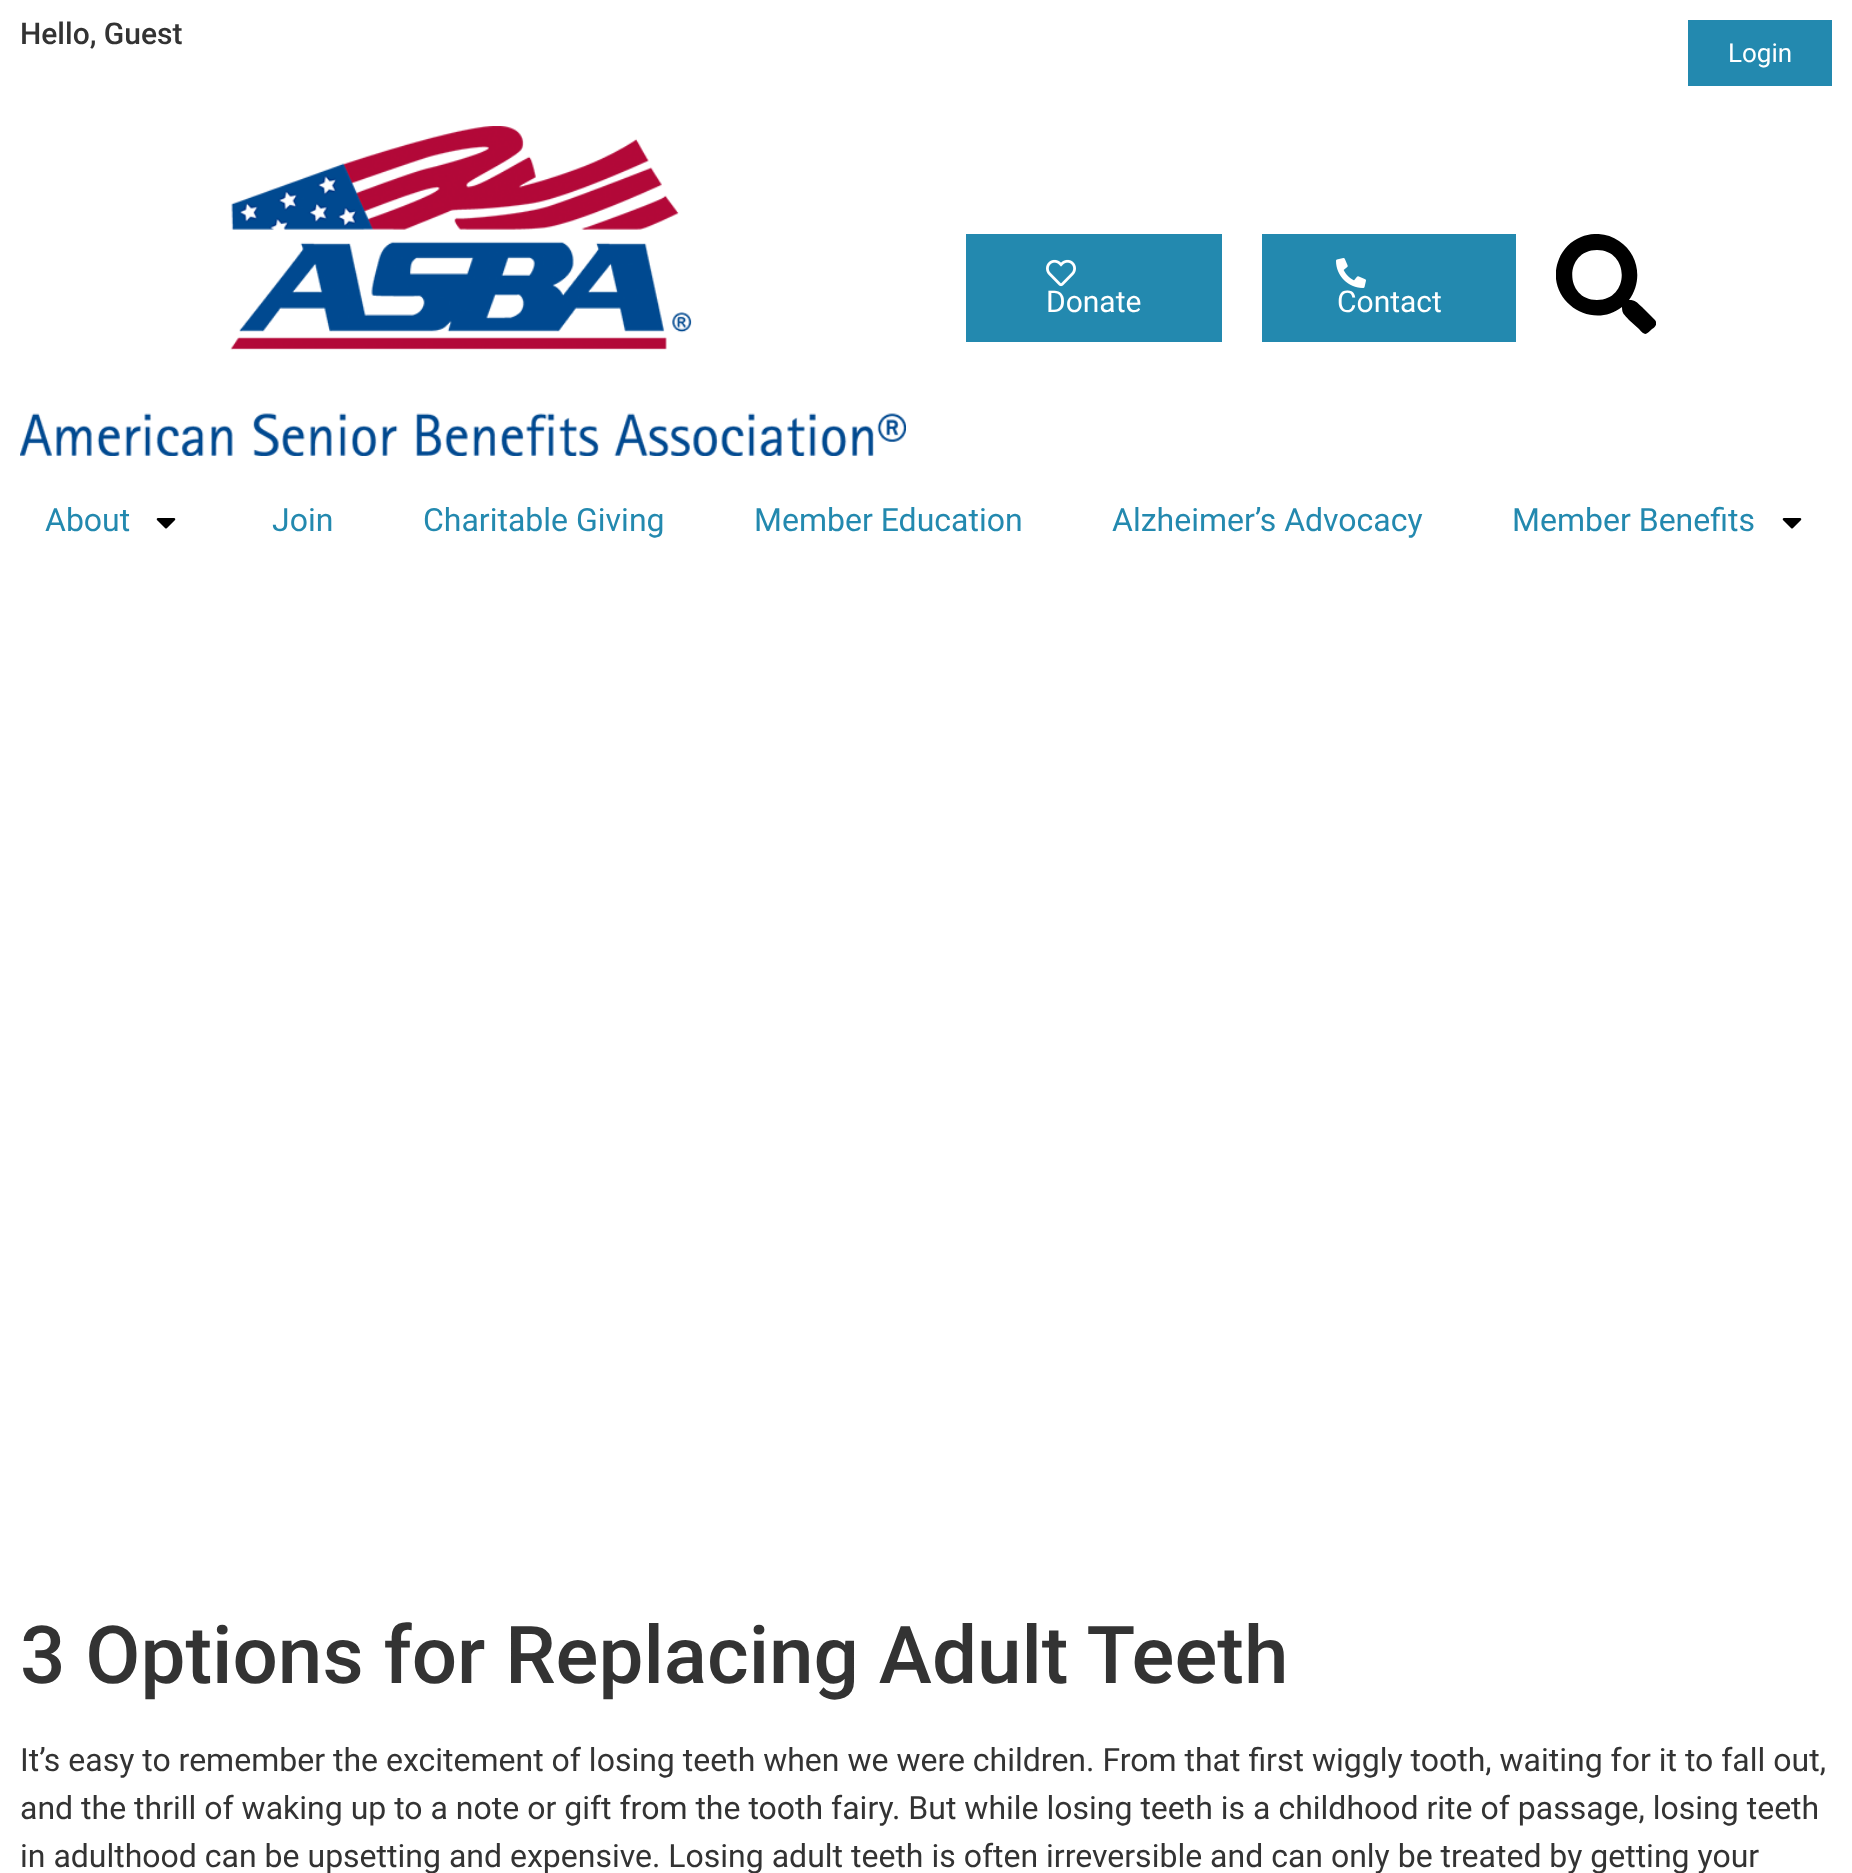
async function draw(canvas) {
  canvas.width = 1852
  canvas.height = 1873
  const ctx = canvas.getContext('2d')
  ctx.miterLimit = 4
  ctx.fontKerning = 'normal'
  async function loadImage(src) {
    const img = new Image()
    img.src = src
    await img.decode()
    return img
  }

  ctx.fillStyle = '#fff'
  ctx.fillRect(0, 0, 1852, 1873)
  ctx.font = '500 30px Roboto'
  ctx.fillStyle = '#333'
  ctx.fillText('Hello, Guest', 20, 44)
  ctx.fillStyle = '#2389af'
  ctx.fillRect(1688, 20, 144, 66)
  ctx.font = '26px Roboto'
  ctx.fillStyle = '#fff'
  ctx.fillText('Login', 1728, 62)
  ctx.drawImage(await loadImage('image0.png'), 20, 126, 886, 330)
  ctx.fillStyle = '#2389af'
  ctx.fillRect(966, 234, 256, 108)
  ctx.drawImage(await loadImage('image1.png'), 1046, 259, 30, 28)
  ctx.font = '30px Roboto'
  ctx.fillStyle = '#fff'
  ctx.fillText('Donate', 1046, 312)
  ctx.fillStyle = '#2389af'
  ctx.fillRect(1262, 234, 254, 108)
  ctx.drawImage(await loadImage('image2.png'), 1336, 258, 30, 30)
  ctx.fillStyle = '#fff'
  ctx.fillText('Contact', 1337, 312)
  ctx.save()
  ctx.beginPath()
  ctx.rect(1556, 234, 100, 100)
  ctx.clip()
  ctx.fillStyle = '#000'
  ctx.beginPath()
  ctx.moveTo(1655, 320)
  ctx.lineTo(1642, 307)
  ctx.bezierCurveTo(1636, 302, 1636, 300, 1629, 300)
  ctx.bezierCurveTo(1643, 281, 1639, 254, 1619, 241)
  ctx.bezierCurveTo(1608, 233, 1593, 232, 1581, 237)
  ctx.bezierCurveTo(1571, 241, 1563, 249, 1559, 259)
  ctx.bezierCurveTo(1543, 298, 1590, 332, 1622, 307)
  ctx.bezierCurveTo(1622, 314, 1624, 314, 1629, 320)
  ctx.lineTo(1639, 329)
  ctx.bezierCurveTo(1645, 336, 1646, 335, 1652, 329)
  ctx.bezierCurveTo(1655, 327, 1658, 324, 1655, 320)
  ctx.closePath()
  ctx.moveTo(1597, 300)
  ctx.bezierCurveTo(1564, 300, 1564, 250, 1597, 250)
  ctx.bezierCurveTo(1630, 250, 1630, 300, 1597, 300)
  ctx.closePath()
  ctx.fill()
  ctx.restore()
  ctx.font = '32px Roboto'
  ctx.fillStyle = '#2389af'
  ctx.fillText('About', 45, 531)
  ctx.drawImage(await loadImage('image3.png'), 156, 518, 20, 11)
  ctx.fillText('Join', 272, 531)
  ctx.fillText('Charitable Giving', 423, 531)
  ctx.fillText('Member Education', 754, 531)
  ctx.fillText('Alzheimer’s Advocacy', 1112, 531)
  ctx.fillText('Member Benefits', 1512, 531)
  ctx.drawImage(await loadImage('image3.png'), 1782, 518, 20, 11)
  ctx.font = '500 80px Roboto'
  ctx.fillStyle = '#333'
  ctx.fillText('3 Options for Replacing Adult Teeth', 20, 1683)
  ctx.font = '32px Roboto'
  ctx.fillText('It’s easy to remember the excitement of losing teeth when we were children. From that first wiggly tooth, waiting for it to fall out,', 20, 1771)
  ctx.fillText('and the thrill of waking up to a note or gift from the tooth fairy. But while losing teeth is a childhood rite of passage, losing teeth', 20, 1819)
  ctx.fillText('in adulthood can be upsetting and expensive. Losing adult teeth is often irreversible and can only be treated by getting your', 20, 1867)
}

draw(document.querySelector('canvas'))
